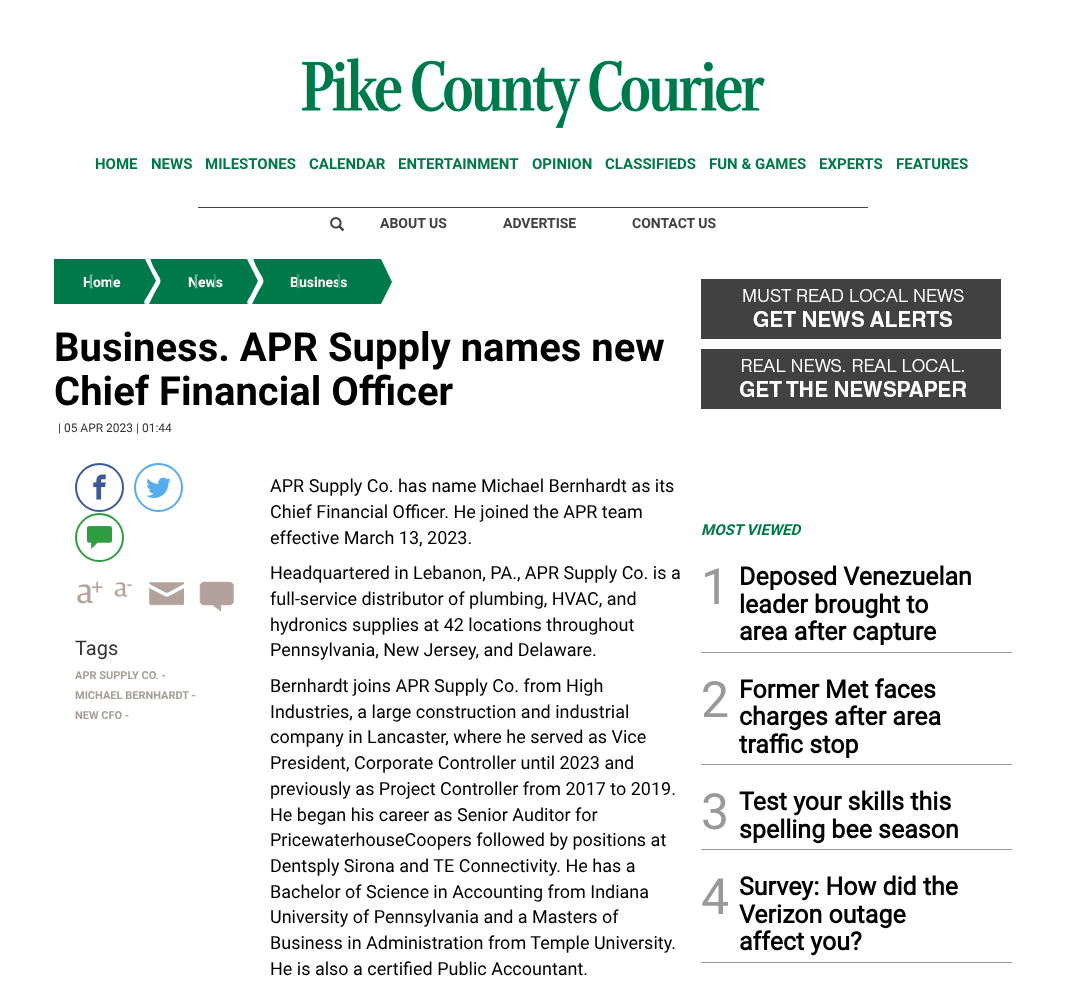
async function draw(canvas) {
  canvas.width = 1066
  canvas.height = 983
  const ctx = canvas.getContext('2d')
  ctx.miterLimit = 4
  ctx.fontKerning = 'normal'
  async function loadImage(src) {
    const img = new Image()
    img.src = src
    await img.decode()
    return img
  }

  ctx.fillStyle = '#fff'
  ctx.fillRect(0, 0, 1066, 983)
  ctx.drawImage(await loadImage('image0.png'), 302, 58, 463, 70)
  ctx.font = 'bold 15px Roboto'
  ctx.fillStyle = '#00794a'
  ctx.fillText('HOME', 95, 169)
  ctx.fillText('NEWS', 151, 169)
  ctx.fillText('MILESTONES', 205, 169)
  ctx.fillText('CALENDAR', 309, 169)
  ctx.fillText('ENTERTAINMENT', 398, 169)
  ctx.fillText('OPINION', 532, 169)
  ctx.fillText('CLASSIFIEDS', 605, 169)
  ctx.fillText('FUN & GAMES', 709, 169)
  ctx.fillText('EXPERTS', 819, 169)
  ctx.fillText('FEATURES', 896, 169)
  ctx.fillStyle = '#414141'
  ctx.fillRect(198, 207, 670, 1)
  ctx.drawImage(await loadImage('image1.png'), 330, 217, 15, 14)
  ctx.font = 'bold 14px Roboto'
  ctx.fillText('ABOUT US', 380, 228)
  ctx.fillText('ADVERTISE', 503, 228)
  ctx.fillText('CONTACT US', 632, 228)
  ctx.fillStyle = '#00794a'
  ctx.fillRect(54, 259, 327, 45)
  ctx.fillStyle = '#fff'
  ctx.fillText('Home', 83, 287)
  ctx.fillStyle = '#6fb399'
  ctx.fillText('[', 89, 286)
  ctx.fillStyle = '#33946f'
  ctx.fillText(']', 110, 286)
  ctx.fillStyle = '#fff'
  ctx.beginPath()
  ctx.moveTo(145, 258)
  ctx.bezierCurveTo(152, 258, 149, 257, 153, 266)
  ctx.bezierCurveTo(163, 285, 163, 277, 153, 296)
  ctx.lineTo(151, 300)
  ctx.bezierCurveTo(149, 304, 150, 304, 147, 304)
  ctx.bezierCurveTo(141, 304, 146, 299, 148, 295)
  ctx.lineTo(156, 281)
  ctx.lineTo(145, 259)
  ctx.closePath()
  ctx.fill()
  ctx.fillText('News', 188, 287)
  ctx.fillStyle = '#6fb399'
  ctx.fillText('[', 194, 286)
  ctx.fillStyle = '#33946f'
  ctx.fillText(']', 213, 286)
  ctx.fillStyle = '#fff'
  ctx.beginPath()
  ctx.moveTo(248, 258)
  ctx.bezierCurveTo(255, 258, 252, 257, 256, 266)
  ctx.bezierCurveTo(266, 285, 266, 277, 256, 296)
  ctx.lineTo(254, 300)
  ctx.bezierCurveTo(252, 304, 253, 304, 250, 304)
  ctx.bezierCurveTo(244, 304, 249, 299, 251, 295)
  ctx.lineTo(258, 281)
  ctx.lineTo(247, 259)
  ctx.closePath()
  ctx.fill()
  ctx.fillText('Business', 290, 287)
  ctx.fillStyle = '#4da281'
  ctx.fillText('[', 296, 286)
  ctx.fillStyle = '#33946f'
  ctx.fillText(']', 337, 286)
  ctx.fillStyle = '#00794a'
  ctx.beginPath()
  ctx.moveTo(381, 304)
  ctx.lineTo(381, 259)
  ctx.lineTo(392, 282)
  ctx.closePath()
  ctx.fill()
  ctx.font = 'bold 40px Roboto'
  ctx.fillStyle = '#000'
  ctx.fillText('Business. APR Supply names new', 54, 361)
  ctx.fillText('Chief Financial Officer', 54, 405)
  ctx.font = '12px Roboto'
  ctx.fillStyle = '#333'
  ctx.fillText('| 05 APR 2023 | 01:44', 58, 432)
  ctx.beginPath()
  ctx.arc(99.5, 487.5, 23.5, 0, 2 * Math.PI)
  ctx.strokeStyle = '#3b5998'
  ctx.lineWidth = 2
  ctx.stroke()
  ctx.drawImage(await loadImage('image2.png'), 93, 474, 13, 26)
  ctx.beginPath()
  ctx.arc(158.5, 487.5, 23.5, 0, 2 * Math.PI)
  ctx.strokeStyle = '#55acee'
  ctx.stroke()
  ctx.drawImage(await loadImage('image3.png'), 146, 477, 25, 21)
  ctx.beginPath()
  ctx.arc(99.5, 537.5, 23.5, 0, 2 * Math.PI)
  ctx.strokeStyle = '#2f9e42'
  ctx.stroke()
  ctx.drawImage(await loadImage('image4.png'), 87, 526, 25, 23)
  ctx.drawImage(await loadImage('image5.png'), 77, 581, 26, 23)
  ctx.drawImage(await loadImage('image6.png'), 114, 582, 18, 15)
  ctx.drawImage(await loadImage('image7.png'), 148, 582, 36, 24)
  ctx.drawImage(await loadImage('image8.png'), 199, 581, 35, 31)
  ctx.font = '20px Roboto'
  ctx.fillText('Tags', 75, 655)
  ctx.font = 'bold 11px Roboto'
  ctx.fillStyle = '#a49e99'
  ctx.fillText('APR SUPPLY CO. -', 75, 679)
  ctx.fillText('MICHAEL BERNHARDT -', 75, 699)
  ctx.fillText('NEW CFO -', 75, 719)
  ctx.font = '18px Roboto'
  ctx.fillStyle = '#000'
  ctx.fillText('APR Supply Co. has name Michael Bernhardt as its', 270, 492)
  ctx.fillText('Chief Financial Officer. He joined the APR team', 270, 518)
  ctx.fillText('effective March 13, 2023.', 270, 544)
  ctx.fillText('Headquartered in Lebanon, PA., APR Supply Co. is a', 270, 579)
  ctx.fillText('full-service distributor of plumbing, HVAC, and', 270, 605)
  ctx.fillText('hydronics supplies at 42 locations throughout', 270, 631)
  ctx.fillText('Pennsylvania, New Jersey, and Delaware.', 270, 656)
  ctx.fillText('Bernhardt joins APR Supply Co. from High', 270, 692)
  ctx.fillText('Industries, a large construction and industrial', 270, 718)
  ctx.fillText('company in Lancaster, where he served as Vice', 270, 743)
  ctx.fillText('President, Corporate Controller until 2023 and', 270, 769)
  ctx.fillText('previously as Project Controller from 2017 to 2019.', 270, 795)
  ctx.fillText('He began his career as Senior Auditor for', 270, 821)
  ctx.fillText('PricewaterhouseCoopers followed by positions at', 270, 846)
  ctx.fillText('Dentsply Sirona and TE Connectivity. He has a', 270, 872)
  ctx.fillText('Bachelor of Science in Accounting from Indiana', 270, 898)
  ctx.fillText('University of Pennsylvania and a Masters of', 270, 923)
  ctx.fillText('Business in Administration from Temple University.', 270, 949)
  ctx.fillText('He is also a certified Public Accountant.', 270, 975)
  ctx.drawImage(await loadImage('image9.png'), 701, 279, 300, 60)
  ctx.drawImage(await loadImage('image10.png'), 701, 349, 300, 60)
  ctx.font = 'italic bold 15px Roboto'
  ctx.fillStyle = '#00794a'
  ctx.fillText('MOST VIEWED', 701, 535)
  ctx.fillStyle = '#999'
  ctx.fillRect(701, 652, 311, 1)
  ctx.font = '50px Roboto'
  ctx.fillText('1', 701, 604)
  ctx.font = 'bold 25px "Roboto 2"'
  ctx.fillStyle = '#000'
  ctx.fillText('Deposed Venezuelan', 739, 585)
  ctx.fillText('leader brought to', 739, 613)
  ctx.fillText('area after capture', 739, 640)
  ctx.fillStyle = '#999'
  ctx.fillRect(701, 764, 311, 1)
  ctx.font = '50px Roboto'
  ctx.fillText('2', 701, 717)
  ctx.font = 'bold 25px "Roboto 2"'
  ctx.fillStyle = '#000'
  ctx.fillText('Former Met faces', 739, 698)
  ctx.fillText('charges after area', 739, 725)
  ctx.fillText('traffic stop', 739, 753)
  ctx.fillStyle = '#999'
  ctx.fillRect(701, 849, 311, 1)
  ctx.font = '50px Roboto'
  ctx.fillText('3', 701, 829)
  ctx.font = 'bold 25px "Roboto 2"'
  ctx.fillStyle = '#000'
  ctx.fillText('Test your skills this', 739, 810)
  ctx.fillText('spelling bee season', 739, 838)
  ctx.fillStyle = '#999'
  ctx.fillRect(701, 962, 311, 1)
  ctx.font = '50px Roboto'
  ctx.fillText('4', 701, 914)
  ctx.font = 'bold 25px "Roboto 2"'
  ctx.fillStyle = '#000'
  ctx.fillText('Survey: How did the', 739, 895)
  ctx.fillText('Verizon outage', 739, 923)
  ctx.fillText('affect you?', 739, 950)
}

draw(document.querySelector('canvas'))
